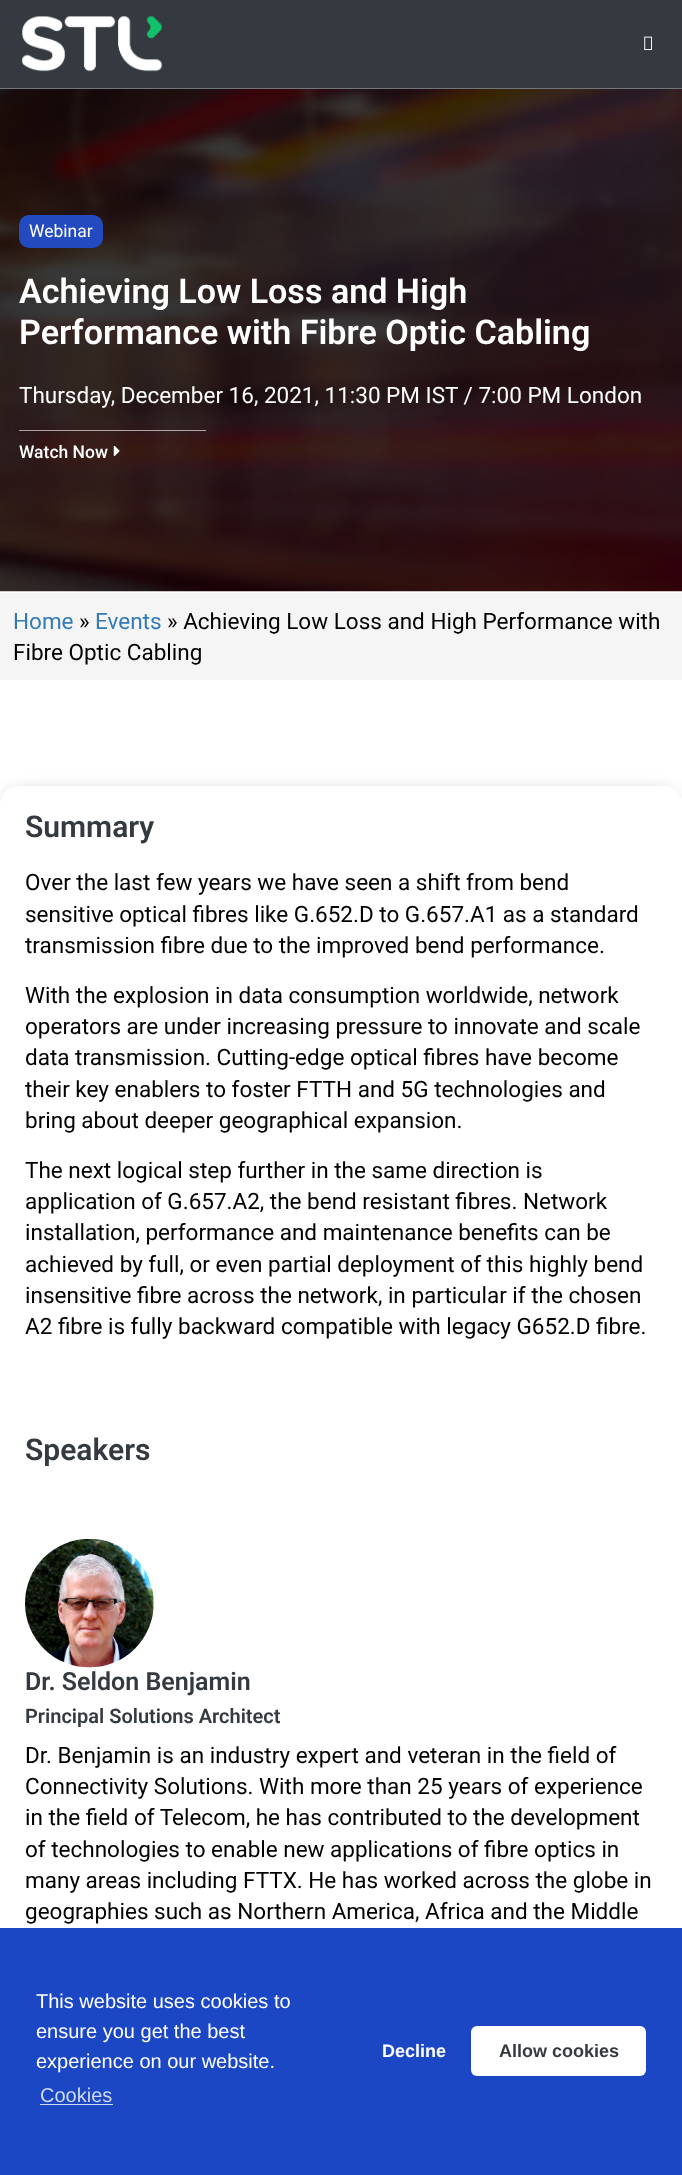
async function draw(canvas) {
  canvas.width = 682
  canvas.height = 2175
  const ctx = canvas.getContext('2d')
  ctx.miterLimit = 4
  ctx.fontKerning = 'normal'
  async function loadImage(src) {
    const img = new Image()
    img.src = src
    await img.decode()
    return img
  }

  ctx.fillStyle = '#fff'
  ctx.fillRect(0, 0, 682, 2175)
  ctx.fillStyle = '#343a40'
  ctx.fillRect(0, 0, 682, 88)
  ctx.fillStyle = '#72767a'
  ctx.fillRect(0, 88, 682, 1)
  ctx.drawImage(await loadImage('image0.png'), 21, 16, 142, 56)
  ctx.drawImage(await loadImage('image1.png'), 644, 36, 8, 14)
  ctx.drawImage(await loadImage('image2.png'), 0, 89, 682, 503)
  ctx.fillStyle = '#234abe'
  ctx.beginPath()
  ctx.roundRect(19, 215, 84, 33, 10)
  ctx.fill()
  ctx.font = '17.5px Roboto'
  ctx.fillStyle = '#fff'
  ctx.fillText('Webinar', 29, 237)
  ctx.font = '600 34.1px Roboto'
  ctx.fillText('Achieving Low Loss and High', 19, 303)
  ctx.fillText('Performance with Fibre Optic Cabling', 19, 344)
  ctx.font = '22.5px Roboto'
  ctx.fillText('Thursday, December 16, 2021, 11:30 PM IST / 7:00 PM London', 19, 403)
  ctx.fillStyle = '#ffffff9c'
  ctx.fillRect(19, 430, 187, 1)
  ctx.font = '500 17.5px Roboto'
  ctx.fillStyle = '#fff'
  ctx.fillText('Watch Now', 19, 458)
  ctx.drawImage(await loadImage('image3.png'), 113, 445, 7, 11)
  ctx.fillStyle = '#f5f5f5'
  ctx.fillRect(0, 593, 682, 87)
  ctx.font = '22.5px Roboto'
  ctx.fillStyle = '#337ab7'
  ctx.fillText('Home', 13, 629)
  ctx.fillStyle = '#000'
  ctx.fillText('»', 79, 629)
  ctx.fillStyle = '#337ab7'
  ctx.fillText('Events', 95, 629)
  ctx.fillStyle = '#000'
  ctx.fillText('» Achieving Low Loss and High Performance with', 167, 629)
  ctx.fillText('Fibre Optic Cabling', 13, 660)
  ctx.fillStyle = '#00000080'
  ctx.filter = 'blur(10.5px)'
  ctx.beginPath()
  ctx.roundRect(11, 798, 660, 1235, 8)
  ctx.fill()
  ctx.filter = 'none'
  ctx.fillStyle = '#fff'
  ctx.beginPath()
  ctx.roundRect(0, 786, 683, 1258, 19)
  ctx.fill()
  ctx.font = '600 30px Roboto'
  ctx.fillStyle = '#343a40'
  ctx.fillText('Summary', 25, 837)
  ctx.font = '22.5px Roboto'
  ctx.fillStyle = '#000'
  ctx.fillText('Over the last few years we have seen a shift from bend', 25, 890)
  ctx.fillText('sensitive optical fibres like G.652.D to G.657.A1 as a standard', 25, 922)
  ctx.fillText('transmission fibre due to the improved bend performance.', 25, 953)
  ctx.fillText('With the explosion in data consumption worldwide, network', 25, 1003)
  ctx.fillText('operators are under increasing pressure to innovate and scale', 25, 1034)
  ctx.fillText('data transmission. Cutting-edge optical fibres have become', 25, 1065)
  ctx.fillText('their key enablers to foster FTTH and 5G technologies and', 25, 1097)
  ctx.fillText('bring about deeper geographical expansion.', 25, 1128)
  ctx.fillText('The next logical step further in the same direction is', 25, 1178)
  ctx.fillText('application of G.657.A2, the bend resistant fibres. Network', 25, 1209)
  ctx.fillText('installation, performance and maintenance benefits can be', 25, 1240)
  ctx.fillText('achieved by full, or even partial deployment of this highly bend', 25, 1272)
  ctx.fillText('insensitive fibre across the network, in particular if the chosen', 25, 1303)
  ctx.fillText('A2 fibre is fully backward compatible with legacy G652.D fibre.', 25, 1334)
  ctx.font = '600 30px Roboto'
  ctx.fillStyle = '#343a40'
  ctx.fillText('Speakers', 25, 1460)
  ctx.drawImage(await loadImage('image4.png'), 25, 1539, 129, 129)
  ctx.font = '600 25px Roboto'
  ctx.fillText('Dr. Seldon Benjamin', 25, 1690)
  ctx.font = '600 20px Roboto'
  ctx.fillText('Principal Solutions Architect', 25, 1723)
  ctx.font = '22.5px Roboto'
  ctx.fillStyle = '#000'
  ctx.fillText('Dr. Benjamin is an industry expert and veteran in the field of', 25, 1763)
  ctx.fillText('Connectivity Solutions. With more than 25 years of experience', 25, 1794)
  ctx.fillText('in the field of Telecom, he has contributed to the development', 25, 1825)
  ctx.fillText('of technologies to enable new applications of fibre optics in', 25, 1857)
  ctx.fillText('many areas including FTTX. He has worked across the globe in', 25, 1888)
  ctx.fillText('geographies such as Northern America, Africa and the Middle', 25, 1919)
  ctx.fillStyle = '#1b47c5'
  ctx.fillRect(0, 1928, 682, 247)
  ctx.font = '20px Liberation Sans'
  ctx.fillStyle = '#fff'
  ctx.fillText('This website uses cookies to', 36, 2008)
  ctx.fillText('ensure you get the best', 36, 2038)
  ctx.fillText('experience on our website.', 36, 2068)
  ctx.fillStyle = '#d1daf3'
  ctx.fillText('Cookies', 40, 2102)
  ctx.fillRect(40, 2104, 73, 1)
  ctx.font = 'bold 18px Liberation Sans'
  ctx.fillStyle = '#fff'
  ctx.fillText('Decline', 382, 2057)
  ctx.beginPath()
  ctx.roundRect(471, 2026, 175, 50, 6)
  ctx.fill()
  ctx.fillStyle = '#343a40'
  ctx.fillText('Allow cookies', 499, 2057)
}

draw(document.querySelector('canvas'))
